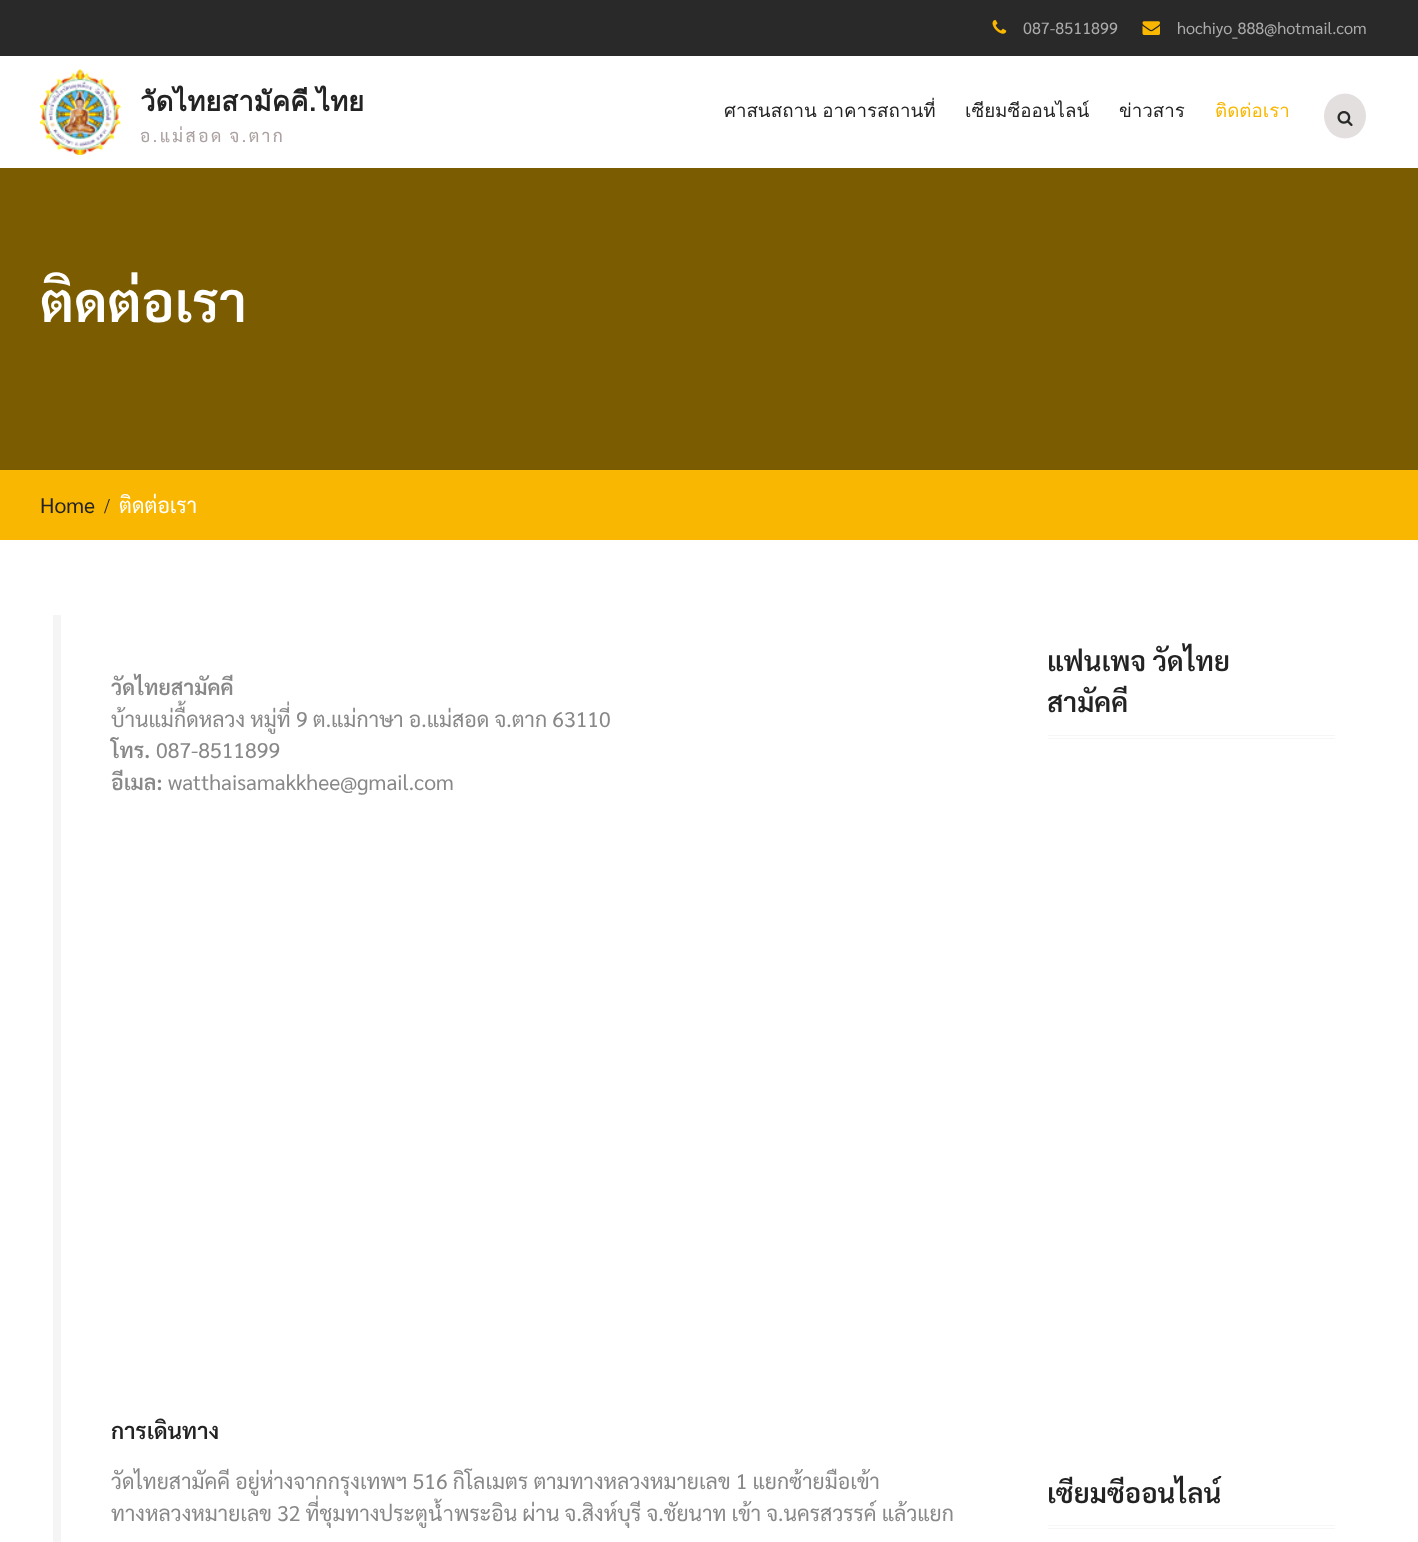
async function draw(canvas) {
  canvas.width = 1418
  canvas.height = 1542
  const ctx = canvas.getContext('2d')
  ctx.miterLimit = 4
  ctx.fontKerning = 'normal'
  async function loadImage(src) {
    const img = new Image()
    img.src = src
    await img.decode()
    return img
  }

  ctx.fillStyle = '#fff'
  ctx.fillRect(0, 0, 1418, 1542)
  ctx.fillStyle = '#292929'
  ctx.fillRect(0, 0, 1418, 56)
  ctx.drawImage(await loadImage('image0.png'), 992, 20, 15, 14)
  ctx.font = '16.25px Sarabun'
  ctx.fillStyle = '#ababab'
  ctx.fillText('087-8511899', 1023, 34)
  ctx.drawImage(await loadImage('image1.png'), 1142, 21, 18, 14)
  ctx.fillText('hochiyo_888@hotmail.com', 1177, 34)
  ctx.drawImage(await loadImage('image2.png'), 40, 68, 82, 87)
  ctx.font = 'bold 27.5px Loma'
  ctx.fillStyle = '#232323'
  ctx.fillText('วัดไทยสามัคคี.ไทย', 140, 111)
  ctx.letterSpacing = '2.5px'
  ctx.wordSpacing = '-1px'
  ctx.font = '17.5px Sarabun'
  ctx.fillStyle = '#aba0a0'
  ctx.fillText('อ.แม่สอด จ.ตาก', 140, 142)
  ctx.letterSpacing = '0px'
  ctx.font = '18.75px Loma'
  ctx.fillStyle = '#232323'
  ctx.fillText('ศาสนสถาน อาคารสถานที่', 724, 117)
  ctx.wordSpacing = '0px'
  ctx.fillText('เซียมซีออนไลน์', 965, 117)
  ctx.fillText('ข่าวสาร', 1119, 117)
  ctx.fillStyle = '#fab702'
  ctx.fillText('ติดต่อเรา', 1215, 117)
  ctx.fillStyle = '#e4dfdf'
  ctx.beginPath()
  ctx.ellipse(1345, 116, 21, 22.5, 0, 0, 2 * Math.PI)
  ctx.fill()
  ctx.drawImage(await loadImage('image3.png'), 1337, 111, 16, 16)
  ctx.fillStyle = '#7c5c01'
  ctx.fillRect(0, 168, 1418, 302)
  ctx.font = '600 55px Sarabun'
  ctx.fillStyle = '#fff'
  ctx.fillText('ติดต่อเรา', 40, 322)
  ctx.fillStyle = '#fab702'
  ctx.fillRect(0, 470, 1418, 70)
  ctx.font = '21.25px Sarabun'
  ctx.fillStyle = '#232323'
  ctx.fillText('Home', 40, 513)
  ctx.font = '21.25px Liberation Serif'
  ctx.fillText('/', 104, 513)
  ctx.font = '21.25px Sarabun'
  ctx.fillStyle = '#fff'
  ctx.fillText('ติดต่อเรา', 119, 513)
  ctx.fillStyle = '#f5f5f5'
  ctx.fillRect(53, 615, 8, 927)
  ctx.font = '600 21.25px Sarabun'
  ctx.fillStyle = '#888'
  ctx.fillText('วัดไทยสามัคคี', 111, 695)
  ctx.font = '21.25px Sarabun'
  ctx.fillText('บ้านแม่กื้ดหลวง หมู่ที่ 9 ต.แม่กาษา อ.แม่สอด จ.ตาก 63110', 111, 727)
  ctx.font = '600 21.25px Sarabun'
  ctx.fillText('โทร.', 111, 758)
  ctx.font = '21.25px Sarabun'
  ctx.fillText('087-8511899', 156, 758)
  ctx.font = '600 21.25px Sarabun'
  ctx.fillText('อีเมล:', 111, 790)
  ctx.font = '21.25px Sarabun'
  ctx.fillText('watthaisamakkhee@gmail.com', 168, 790)
  ctx.font = '600 22.5px Sarabun'
  ctx.fillStyle = '#232323'
  ctx.fillText('การเดินทาง', 111, 1439)
  ctx.font = '21.25px Sarabun'
  ctx.fillStyle = '#888'
  ctx.fillText('วัดไทยสามัคคี อยู่ห่างจากกรุงเทพฯ 516 กิโลเมตร ตามทางหลวงหมายเลข 1 แยกซ้ายมือเข้า', 111, 1489)
  ctx.fillText('ทางหลวงหมายเลข 32 ที่ชุมทางประตูน้ำพระอิน ผ่าน จ.สิงห์บุรี จ.ชัยนาท เข้า จ.นครสวรรค์ แล้วแยก', 111, 1521)
  ctx.fillStyle = '#f7f6f6'
  ctx.fillRect(1048, 735, 287, 1)
  ctx.fillRect(1048, 738, 287, 1)
  ctx.font = '600 27.5px Sarabun'
  ctx.fillStyle = '#232323'
  ctx.fillText('แฟนเพจ วัดไทย', 1047, 671)
  ctx.fillText('สามัคคี', 1047, 712)
  ctx.fillStyle = '#f7f6f6'
  ctx.fillRect(1048, 1525, 287, 1)
  ctx.fillRect(1048, 1528, 287, 1)
  ctx.fillStyle = '#232323'
  ctx.fillText('เซียมซีออนไลน์', 1047, 1503)
}

draw(document.querySelector('canvas'))
